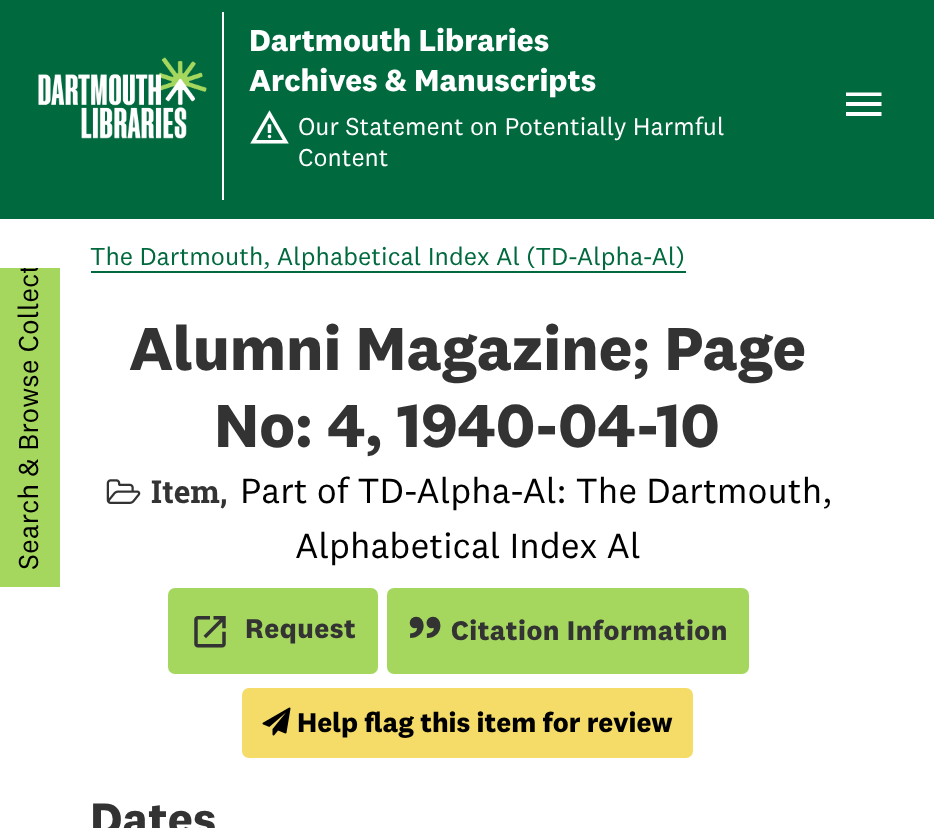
async function draw(canvas) {
  canvas.width = 934
  canvas.height = 828
  const ctx = canvas.getContext('2d')
  ctx.miterLimit = 4
  ctx.fontKerning = 'normal'
  async function loadImage(src) {
    const img = new Image()
    img.src = src
    await img.decode()
    return img
  }

  ctx.fillStyle = '#fff'
  ctx.fillRect(0, 0, 934, 828)
  ctx.fillStyle = '#00693e'
  ctx.fillRect(0, 0, 934, 219)
  ctx.drawImage(await loadImage('image0.png'), 38, 57, 169, 82)
  ctx.fillStyle = '#fff'
  ctx.fillRect(222, 12, 2, 188)
  ctx.font = 'bold 31.5px "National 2"'
  ctx.fillText('Dartmouth Libraries', 249, 51)
  ctx.fillText('Archives & Manuscripts', 249, 91)
  ctx.drawImage(await loadImage('image1.png'), 250, 110, 39, 34)
  ctx.font = '25.25px "National 2"'
  ctx.fillText('Our Statement on Potentially Harmful', 298, 135)
  ctx.fillText('Content', 298, 166)
  ctx.beginPath()
  ctx.moveTo(846, 116)
  ctx.lineTo(846, 112)
  ctx.lineTo(881.5, 112)
  ctx.lineTo(881.5, 116)
  ctx.closePath()
  ctx.moveTo(846, 106)
  ctx.lineTo(846, 102)
  ctx.lineTo(881.5, 102)
  ctx.lineTo(881.5, 106)
  ctx.closePath()
  ctx.moveTo(846, 96)
  ctx.lineTo(846, 92.5)
  ctx.lineTo(881.5, 92.5)
  ctx.lineTo(881.5, 96)
  ctx.closePath()
  ctx.fill()
  ctx.fillStyle = '#a5d75f'
  ctx.fillRect(0, 268, 60, 319)
  ctx.save()
  ctx.beginPath()
  ctx.rect(0, 268, 79, 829)
  ctx.clip()
  ctx.font = '28.4px "National 2"'
  ctx.fillStyle = '#000'
  ctx.save()
  ctx.translate(38, 570)
  ctx.rotate(-90 * Math.PI / 180)
  ctx.fillText('Search & Browse Collection', 0, 0)
  ctx.restore()
  ctx.restore()
  ctx.font = '25.5px "National 2"'
  ctx.fillStyle = '#00693e'
  ctx.fillText('The Dartmouth, Alphabetical Index Al (TD-Alpha-Al)', 90, 265)
  ctx.fillRect(91, 271, 595, 2)
  ctx.font = 'bold 63px "National 2"'
  ctx.fillStyle = '#333'
  ctx.fillText('Alumni Magazine; Page', 129, 370)
  ctx.fillText('No: 4, 1940-04-10', 214, 447)
  ctx.drawImage(await loadImage('image2.png'), 106, 479, 35, 25)
  ctx.font = 'bold 31.5px Roboto Slab'
  ctx.fillText('Item,', 151, 503)
  ctx.font = '36.25px "National 2"'
  ctx.fillStyle = '#000'
  ctx.fillText('Part of TD-Alpha-Al: The Dartmouth,', 240, 503)
  ctx.fillText('Alphabetical Index Al', 295, 558)
  ctx.fillStyle = '#a5d75f'
  ctx.beginPath()
  ctx.roundRect(168, 588, 210, 86, 7)
  ctx.fill()
  ctx.drawImage(await loadImage('image3.png'), 194, 616, 32, 32)
  ctx.letterSpacing = '0.5px'
  ctx.font = 'bold 28px "National 2"'
  ctx.fillStyle = '#333'
  ctx.fillText('Request', 245, 638)
  ctx.fillStyle = '#a5d75f'
  ctx.beginPath()
  ctx.roundRect(387, 588, 362, 86, 7)
  ctx.fill()
  ctx.font = 'bold 70px "National 2"'
  ctx.fillStyle = '#333'
  ctx.fillText('”', 407, 668)
  ctx.font = 'bold 28px "National 2"'
  ctx.fillText('Citation Information', 451, 640)
  ctx.fillStyle = '#f5dc69'
  ctx.beginPath()
  ctx.roundRect(242, 688, 451, 70, 7)
  ctx.fill()
  ctx.drawImage(await loadImage('image4.png'), 262, 707, 29, 29)
  ctx.letterSpacing = '0px'
  ctx.fillStyle = '#000'
  ctx.fillText('Help flag this item for review', 297, 732)
  ctx.font = 'bold 47px "National 2"'
  ctx.fillStyle = '#333'
  ctx.fillText('Dates', 90, 835)
}

draw(document.querySelector('canvas'))
